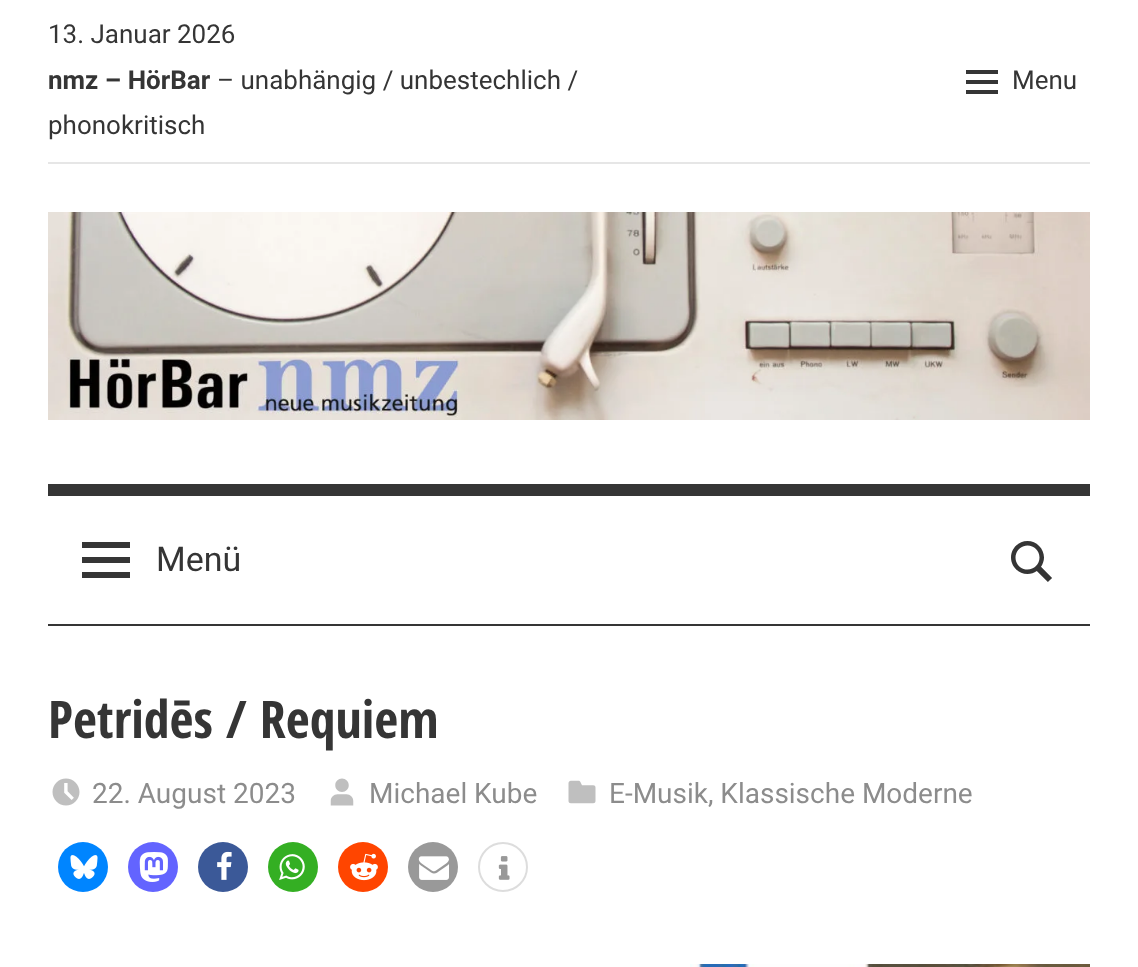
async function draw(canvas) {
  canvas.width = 1138
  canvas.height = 967
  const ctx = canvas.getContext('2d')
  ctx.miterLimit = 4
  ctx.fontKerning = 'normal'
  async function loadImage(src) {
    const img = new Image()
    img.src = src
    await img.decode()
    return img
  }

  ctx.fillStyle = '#fff'
  ctx.fillRect(0, 0, 1138, 967)
  ctx.fillStyle = '#e6e6e6'
  ctx.fillRect(48, 162, 1042, 2)
  ctx.font = '26px Roboto'
  ctx.fillStyle = '#353535'
  ctx.fillText('13. Januar 2026', 48, 43)
  ctx.font = 'bold 26px Roboto'
  ctx.fillText('nmz – HörBar', 48, 89)
  ctx.font = '26px Roboto'
  ctx.fillText('– unabhängig / unbestechlich /', 217, 89)
  ctx.fillText('phonokritisch', 48, 134)
  ctx.drawImage(await loadImage('image0.png'), 966, 70, 32, 24)
  ctx.fillText('Menu', 1012, 89)
  ctx.drawImage(await loadImage('image1.png'), 48, 212, 1042, 208)
  ctx.fillRect(48, 484, 1042, 12)
  ctx.fillRect(48, 624, 1042, 2)
  ctx.drawImage(await loadImage('image2.png'), 82, 542, 48, 36)
  ctx.font = '34px Roboto'
  ctx.fillText('Menü', 156, 571)
  ctx.drawImage(await loadImage('image3.png'), 1011, 541, 41, 41)
  ctx.font = 'bold 52px Open Sans Condensed'
  ctx.fillText('Petridēs / Requiem', 48, 738)
  ctx.drawImage(await loadImage('image4.png'), 52, 778, 28, 28)
  ctx.font = '28px Roboto'
  ctx.fillStyle = '#8c8c8c'
  ctx.fillText('22. August 2023', 92, 803)
  ctx.drawImage(await loadImage('image5.png'), 330, 778, 24, 28)
  ctx.fillText('Michael Kube', 369, 803)
  ctx.drawImage(await loadImage('image6.png'), 568, 780, 28, 24)
  ctx.fillText('E-Musik, Klassische Moderne', 609, 803)
  ctx.fillStyle = '#0085ff'
  ctx.beginPath()
  ctx.arc(83, 867, 25, 0, 2 * Math.PI)
  ctx.fill()
  ctx.drawImage(await loadImage('image7.png'), 70, 855, 28, 24)
  ctx.fillStyle = '#6364ff'
  ctx.beginPath()
  ctx.arc(153, 867, 25, 0, 2 * Math.PI)
  ctx.fill()
  ctx.drawImage(await loadImage('image8.png'), 139, 852, 29, 30)
  ctx.fillStyle = '#3b5998'
  ctx.beginPath()
  ctx.arc(223, 867, 25, 0, 2 * Math.PI)
  ctx.fill()
  ctx.drawImage(await loadImage('image9.png'), 217, 851, 15, 29)
  ctx.fillStyle = '#34af23'
  ctx.beginPath()
  ctx.arc(293, 867, 25, 0, 2 * Math.PI)
  ctx.fill()
  ctx.drawImage(await loadImage('image10.png'), 279, 854, 26, 26)
  ctx.fillStyle = '#ff4500'
  ctx.beginPath()
  ctx.arc(363, 867, 25, 0, 2 * Math.PI)
  ctx.fill()
  ctx.drawImage(await loadImage('image11.png'), 350, 853, 28, 28)
  ctx.fillStyle = '#999'
  ctx.beginPath()
  ctx.arc(433, 867, 25, 0, 2 * Math.PI)
  ctx.fill()
  ctx.drawImage(await loadImage('image12.png'), 418, 856, 31, 24)
  ctx.beginPath()
  ctx.arc(503, 867, 24, 0, 2 * Math.PI)
  ctx.strokeStyle = '#ddd'
  ctx.lineWidth = 2
  ctx.stroke()
  ctx.drawImage(await loadImage('image13.png'), 498, 856, 12, 24)
  ctx.drawImage(await loadImage('image14.png'), 690, 964, 400, 3)
}

draw(document.querySelector('canvas'))
